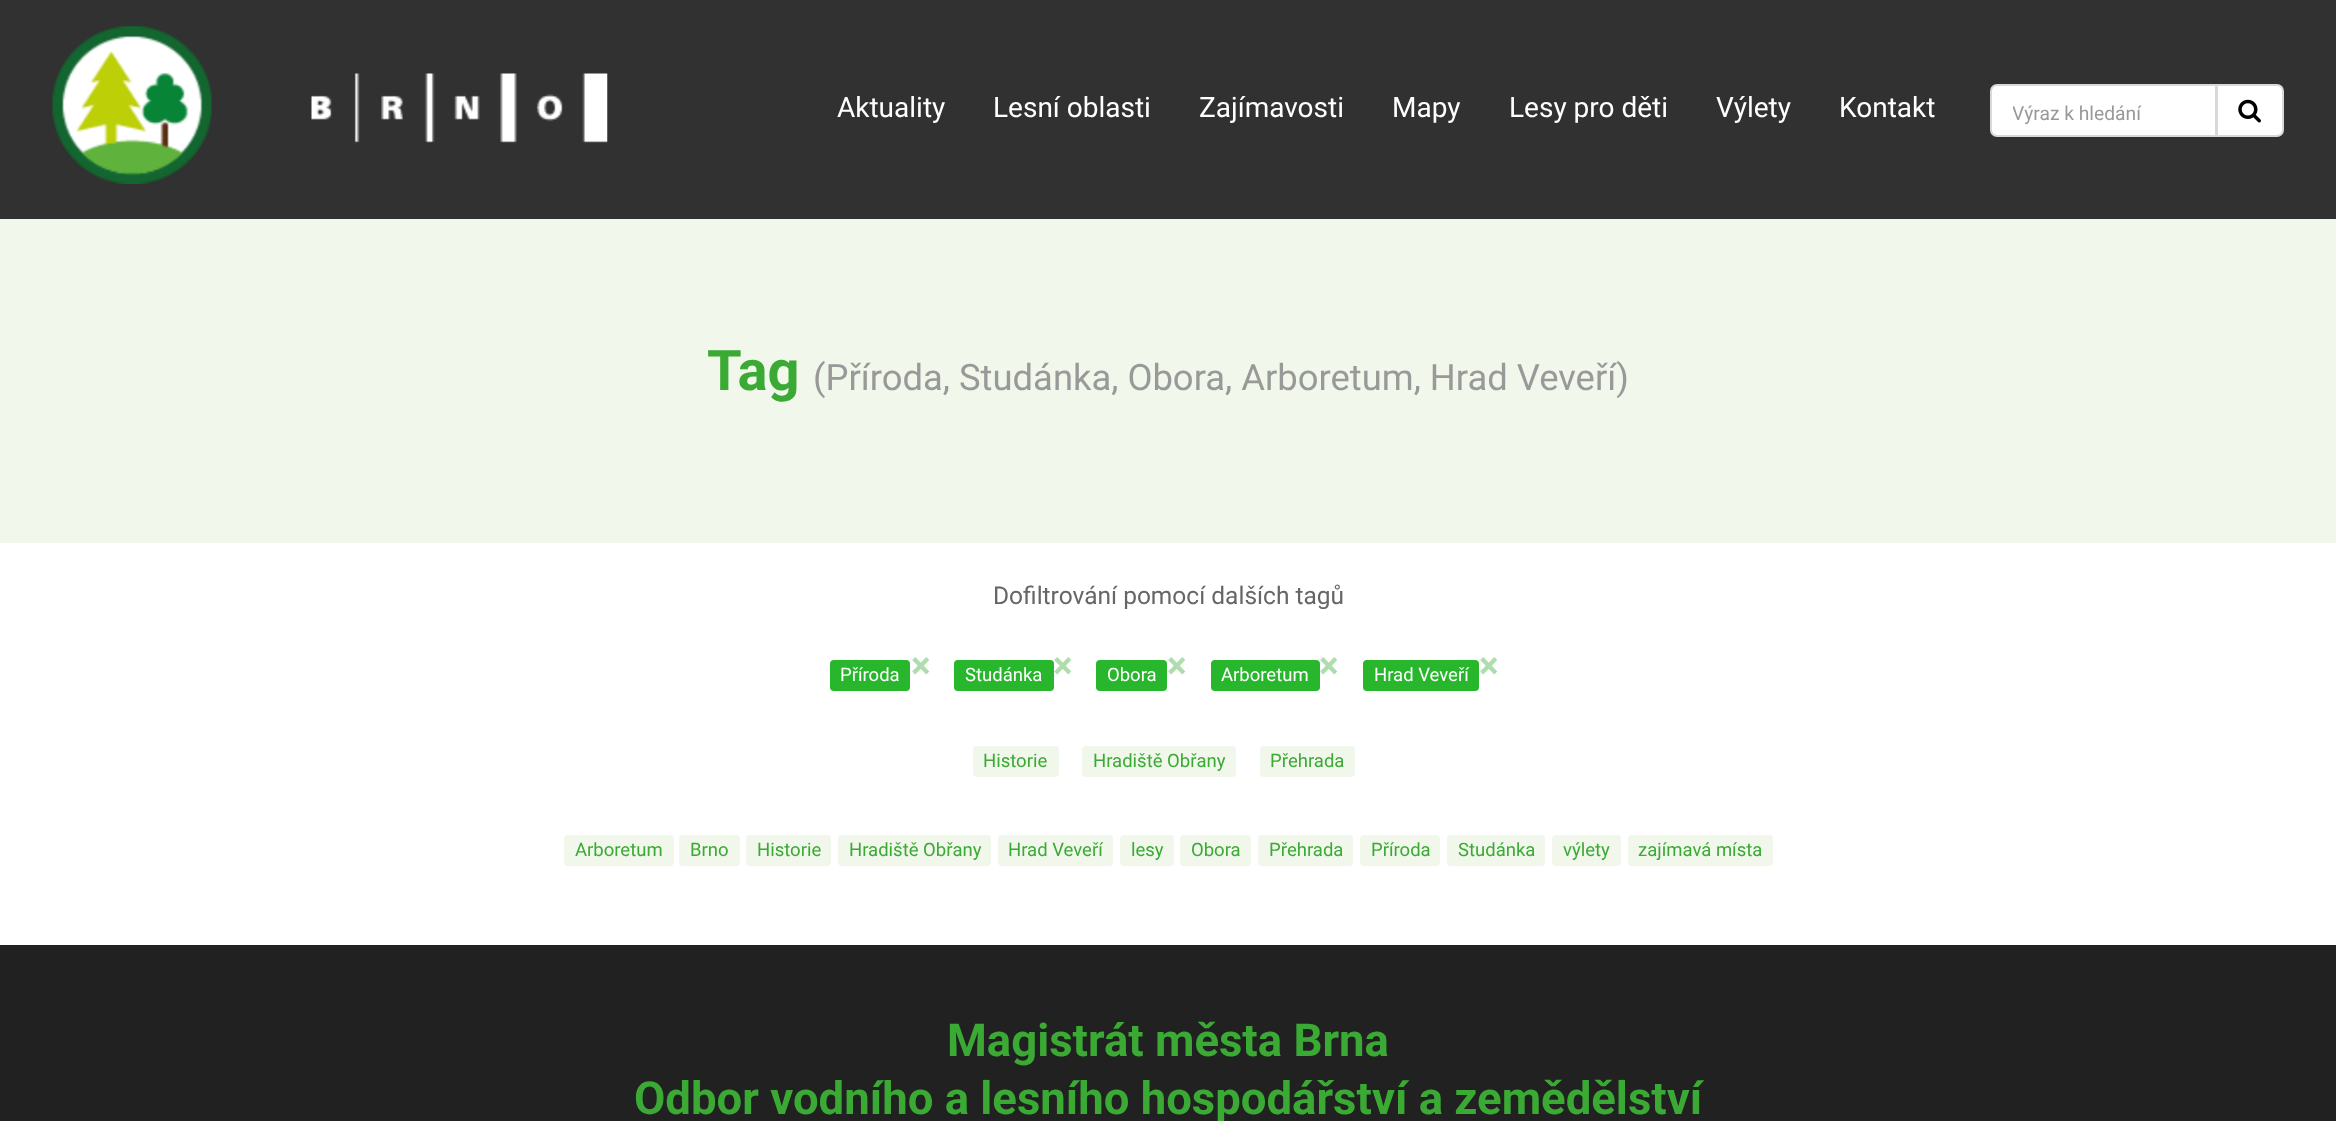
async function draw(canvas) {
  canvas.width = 2336
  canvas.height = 1121
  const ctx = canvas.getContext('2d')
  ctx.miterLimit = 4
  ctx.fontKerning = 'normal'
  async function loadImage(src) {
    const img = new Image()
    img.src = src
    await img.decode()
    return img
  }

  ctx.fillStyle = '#fff'
  ctx.fillRect(0, 0, 2336, 1121)
  ctx.fillStyle = '#313131'
  ctx.fillRect(0, 0, 2336, 219)
  ctx.drawImage(await loadImage('image0.png'), 52, 26, 160, 158)
  ctx.drawImage(await loadImage('image1.png'), 311, 73, 297, 70)
  ctx.font = '28px Roboto'
  ctx.fillStyle = '#fff'
  ctx.fillText('Aktuality', 837, 117)
  ctx.fillText('Lesní oblasti', 993, 117)
  ctx.fillText('Zajímavosti', 1199, 117)
  ctx.fillText('Mapy', 1392, 117)
  ctx.fillText('Lesy pro děti', 1509, 117)
  ctx.fillText('Výlety', 1716, 117)
  ctx.fillText('Kontakt', 1839, 117)
  ctx.beginPath()
  ctx.roundRect(1991, 85, 225, 51, [6, 0, 0, 6])
  ctx.fill()
  ctx.strokeStyle = '#d8d8d8'
  ctx.lineWidth = 2
  ctx.stroke()
  ctx.save()
  ctx.beginPath()
  ctx.rect(2013, 102, 175, 22)
  ctx.clip()
  ctx.font = '19.25px Roboto'
  ctx.fillStyle = '#999'
  ctx.fillText('Výraz k hledání', 2012, 120)
  ctx.restore()
  ctx.beginPath()
  ctx.roundRect(2217, 85, 66, 51, [0, 6, 6, 0])
  ctx.fill()
  ctx.stroke()
  ctx.drawImage(await loadImage('image2.png'), 2238, 99, 23, 24)
  ctx.fillStyle = '#f1f7eb'
  ctx.fillRect(0, 219, 2336, 324)
  ctx.font = 'bold 56px Roboto'
  ctx.fillStyle = '#3aaa35'
  ctx.fillText('Tag', 707, 390)
  ctx.font = '36.4px Roboto'
  ctx.fillStyle = '#999'
  ctx.fillText('(Příroda, Studánka, Obora, Arboretum, Hrad Veveří)', 813, 390)
  ctx.font = '24.5px Roboto'
  ctx.fillStyle = '#666'
  ctx.fillText('Dofiltrování pomocí dalších tagů', 993, 604)
  ctx.fillStyle = '#28b62c'
  ctx.beginPath()
  ctx.roundRect(830, 660, 80, 31, 4)
  ctx.fill()
  ctx.font = '18.5px Roboto'
  ctx.fillStyle = '#fff'
  ctx.fillText('Příroda', 840, 681)
  ctx.font = 'bold 37px Roboto'
  ctx.fillStyle = '#b0ddae'
  ctx.fillText('×', 911, 678)
  ctx.fillStyle = '#28b62c'
  ctx.beginPath()
  ctx.roundRect(954, 660, 100, 31, 4)
  ctx.fill()
  ctx.font = '18.5px Roboto'
  ctx.fillStyle = '#fff'
  ctx.fillText('Studánka', 965, 681)
  ctx.font = 'bold 37px Roboto'
  ctx.fillStyle = '#b0ddae'
  ctx.fillText('×', 1053, 678)
  ctx.fillStyle = '#28b62c'
  ctx.beginPath()
  ctx.roundRect(1096, 660, 71, 31, 4)
  ctx.fill()
  ctx.font = '18.5px Roboto'
  ctx.fillStyle = '#fff'
  ctx.fillText('Obora', 1107, 681)
  ctx.font = 'bold 37px Roboto'
  ctx.fillStyle = '#b0ddae'
  ctx.fillText('×', 1167, 678)
  ctx.fillStyle = '#28b62c'
  ctx.beginPath()
  ctx.roundRect(1211, 660, 109, 31, 4)
  ctx.fill()
  ctx.font = '18.5px Roboto'
  ctx.fillStyle = '#fff'
  ctx.fillText('Arboretum', 1221, 681)
  ctx.font = 'bold 37px Roboto'
  ctx.fillStyle = '#b0ddae'
  ctx.fillText('×', 1319, 678)
  ctx.fillStyle = '#28b62c'
  ctx.beginPath()
  ctx.roundRect(1363, 660, 116, 31, 4)
  ctx.fill()
  ctx.font = '18.5px Roboto'
  ctx.fillStyle = '#fff'
  ctx.fillText('Hrad Veveří', 1374, 681)
  ctx.font = 'bold 37px Roboto'
  ctx.fillStyle = '#b0ddae'
  ctx.fillText('×', 1479, 678)
  ctx.fillStyle = '#f1f7eb'
  ctx.beginPath()
  ctx.roundRect(973, 746, 86, 31, 4)
  ctx.fill()
  ctx.font = '18.5px Roboto'
  ctx.fillStyle = '#3aaa35'
  ctx.fillText('Historie', 983, 767)
  ctx.fillStyle = '#f1f7eb'
  ctx.beginPath()
  ctx.roundRect(1082, 746, 154, 31, 4)
  ctx.fill()
  ctx.fillStyle = '#3aaa35'
  ctx.fillText('Hradiště Obřany', 1093, 767)
  ctx.fillStyle = '#f1f7eb'
  ctx.beginPath()
  ctx.roundRect(1260, 746, 95, 31, 4)
  ctx.fill()
  ctx.fillStyle = '#3aaa35'
  ctx.fillText('Přehrada', 1270, 767)
  ctx.fillStyle = '#f1f7eb'
  ctx.beginPath()
  ctx.roundRect(564, 835, 110, 31, 4)
  ctx.fill()
  ctx.fillStyle = '#3aaa35'
  ctx.fillText('Arboretum', 575, 856)
  ctx.fillStyle = '#f1f7eb'
  ctx.beginPath()
  ctx.roundRect(679, 835, 61, 31, 4)
  ctx.fill()
  ctx.fillStyle = '#3aaa35'
  ctx.fillText('Brno', 690, 856)
  ctx.fillStyle = '#f1f7eb'
  ctx.beginPath()
  ctx.roundRect(746, 835, 85, 31, 4)
  ctx.fill()
  ctx.fillStyle = '#3aaa35'
  ctx.fillText('Historie', 757, 856)
  ctx.fillStyle = '#f1f7eb'
  ctx.beginPath()
  ctx.roundRect(838, 835, 153, 31, 4)
  ctx.fill()
  ctx.fillStyle = '#3aaa35'
  ctx.fillText('Hradiště Obřany', 849, 856)
  ctx.fillStyle = '#f1f7eb'
  ctx.beginPath()
  ctx.roundRect(998, 835, 115, 31, 4)
  ctx.fill()
  ctx.fillStyle = '#3aaa35'
  ctx.fillText('Hrad Veveří', 1008, 856)
  ctx.fillStyle = '#f1f7eb'
  ctx.beginPath()
  ctx.roundRect(1120, 835, 54, 31, 4)
  ctx.fill()
  ctx.fillStyle = '#3aaa35'
  ctx.fillText('lesy', 1131, 856)
  ctx.fillStyle = '#f1f7eb'
  ctx.beginPath()
  ctx.roundRect(1180, 835, 71, 31, 4)
  ctx.fill()
  ctx.fillStyle = '#3aaa35'
  ctx.fillText('Obora', 1191, 856)
  ctx.fillStyle = '#f1f7eb'
  ctx.beginPath()
  ctx.roundRect(1258, 835, 95, 31, 4)
  ctx.fill()
  ctx.fillStyle = '#3aaa35'
  ctx.fillText('Přehrada', 1269, 856)
  ctx.fillStyle = '#f1f7eb'
  ctx.beginPath()
  ctx.roundRect(1360, 835, 80, 31, 4)
  ctx.fill()
  ctx.fillStyle = '#3aaa35'
  ctx.fillText('Příroda', 1371, 856)
  ctx.fillStyle = '#f1f7eb'
  ctx.beginPath()
  ctx.roundRect(1447, 835, 98, 31, 4)
  ctx.fill()
  ctx.fillStyle = '#3aaa35'
  ctx.fillText('Studánka', 1458, 856)
  ctx.fillStyle = '#f1f7eb'
  ctx.beginPath()
  ctx.roundRect(1552, 835, 69, 31, 4)
  ctx.fill()
  ctx.fillStyle = '#3aaa35'
  ctx.fillText('výlety', 1563, 856)
  ctx.fillStyle = '#f1f7eb'
  ctx.beginPath()
  ctx.roundRect(1628, 835, 145, 31, 4)
  ctx.fill()
  ctx.fillStyle = '#3aaa35'
  ctx.fillText('zajímavá místa', 1638, 856)
  ctx.fillStyle = '#212121'
  ctx.fillRect(0, 945, 2336, 176)
  ctx.font = 'bold 45.5px Roboto'
  ctx.fillStyle = '#3aaa35'
  ctx.fillText('Magistrát města Brna', 947, 1056)
  ctx.fillText('Odbor vodního a lesního hospodářství a zemědělství', 634, 1114)
}

draw(document.querySelector('canvas'))
